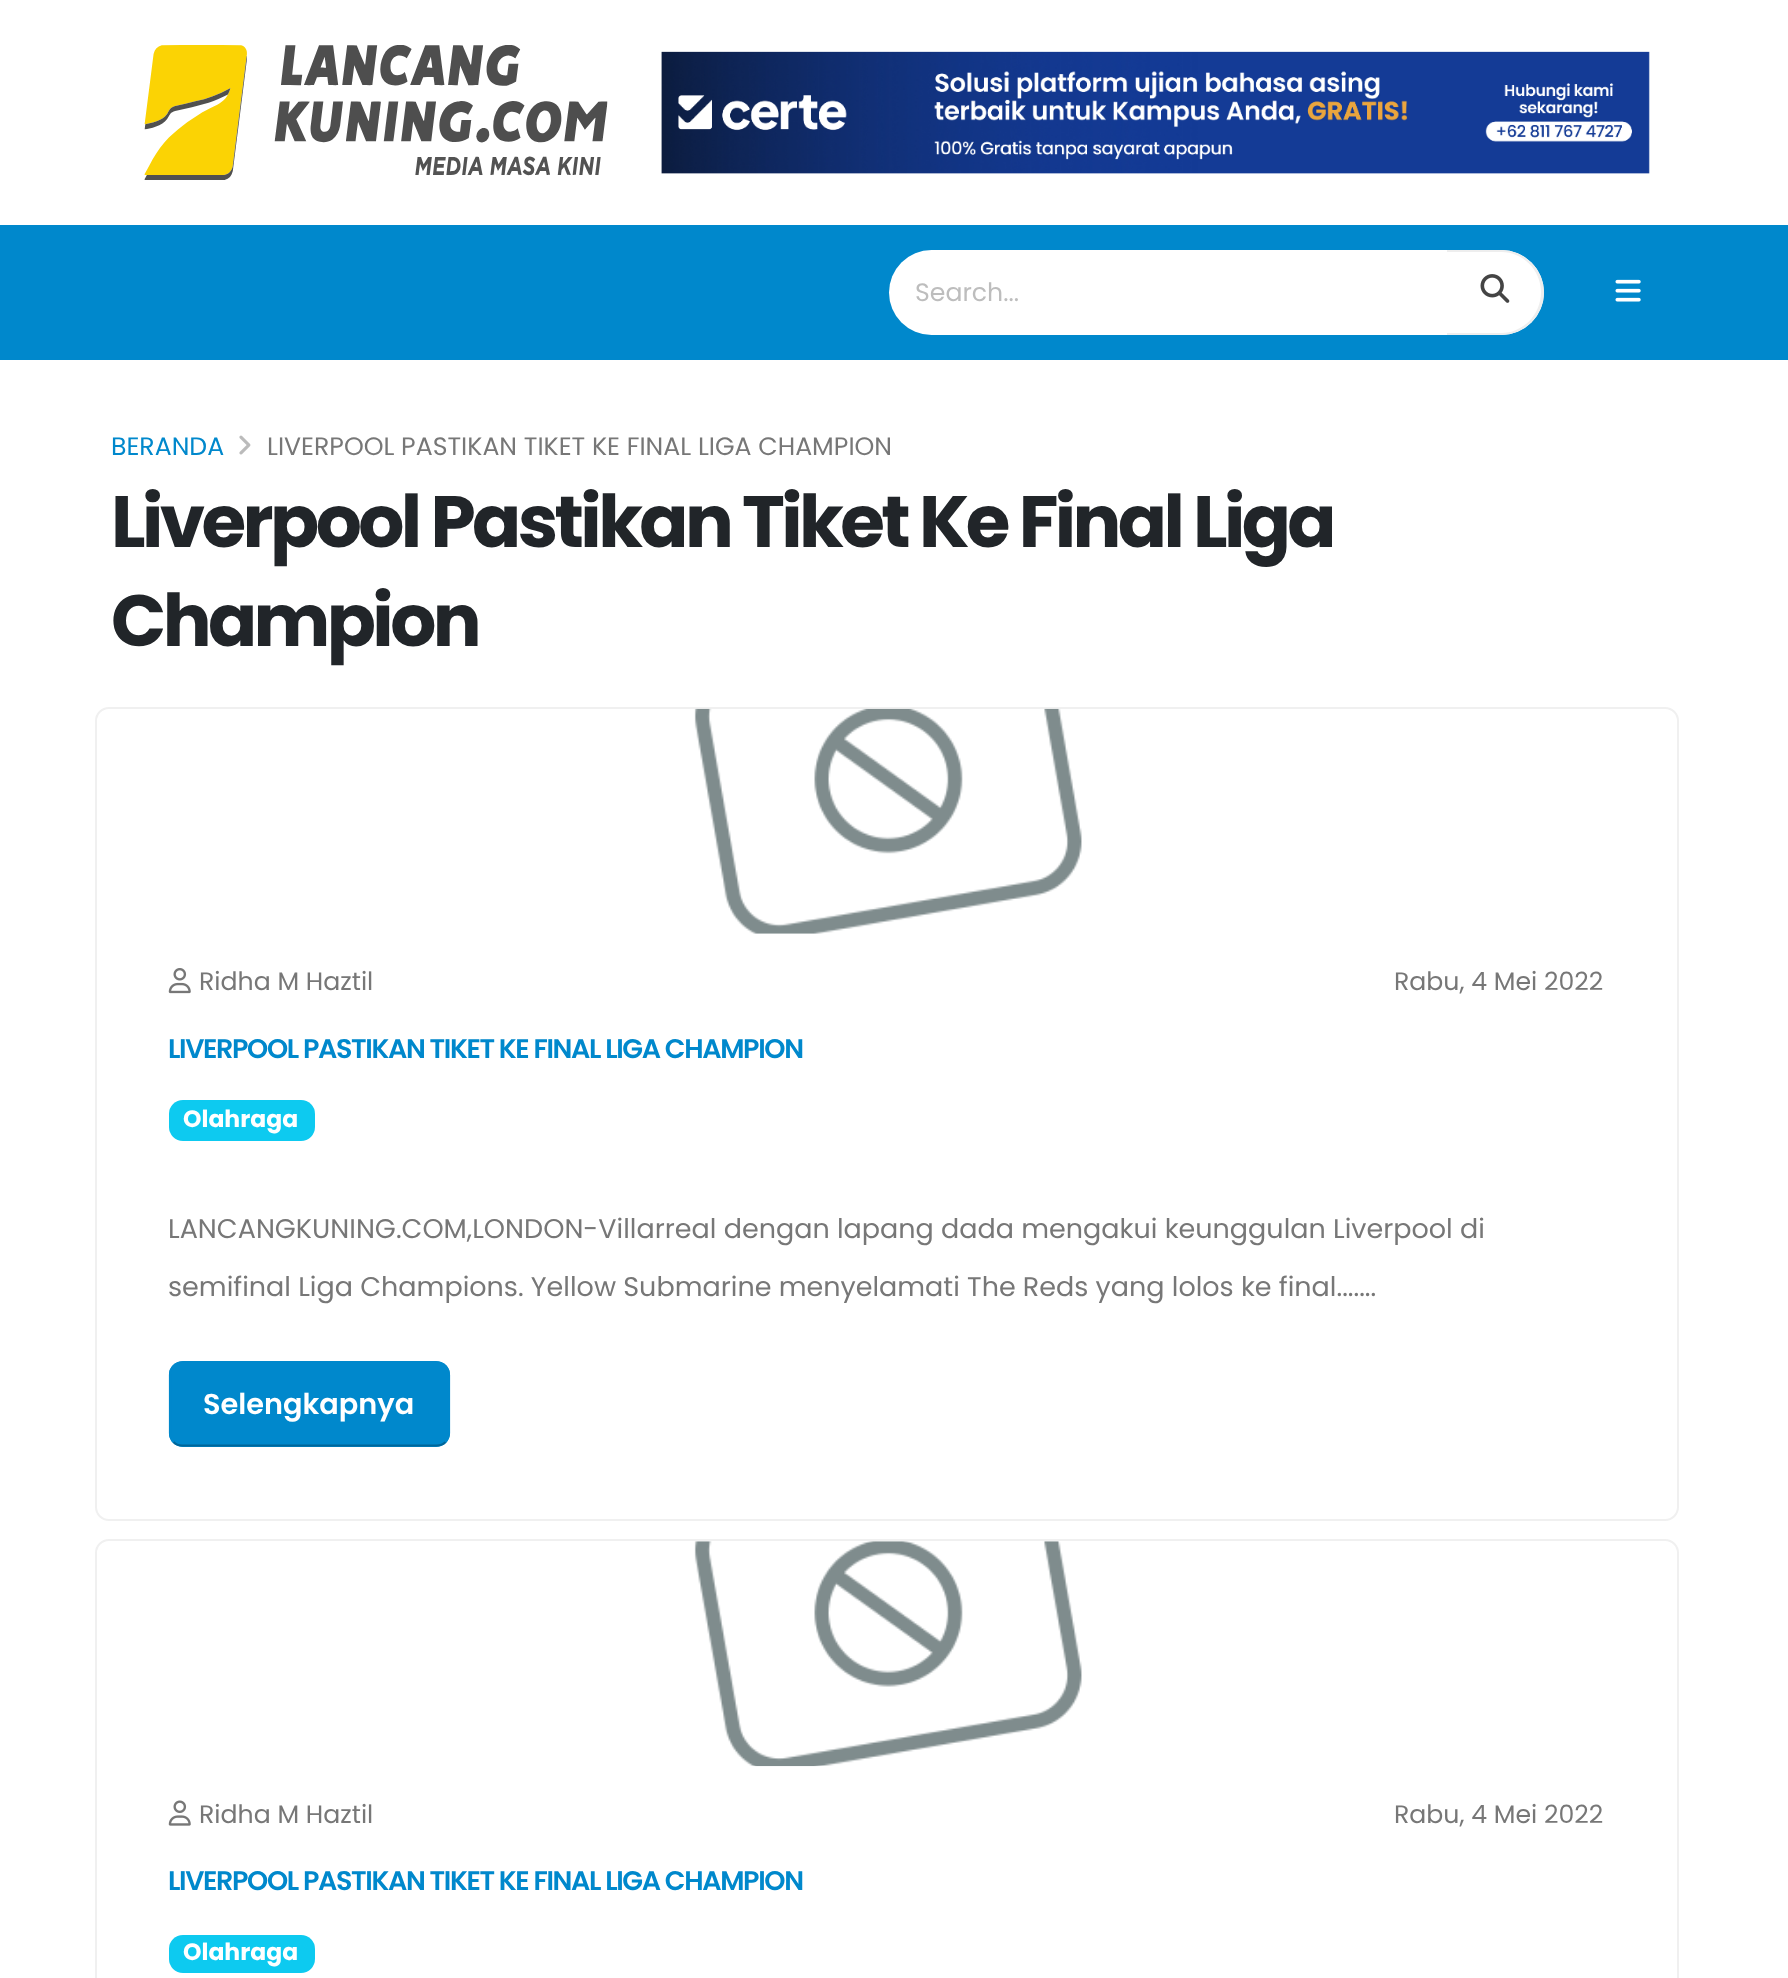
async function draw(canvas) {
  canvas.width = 1788
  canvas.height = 1978
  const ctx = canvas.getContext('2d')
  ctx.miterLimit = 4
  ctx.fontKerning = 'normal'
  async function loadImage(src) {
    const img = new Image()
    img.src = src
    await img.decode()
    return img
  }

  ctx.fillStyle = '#fff'
  ctx.fillRect(0, 0, 1788, 1978)
  ctx.drawImage(await loadImage('image0.png'), 144, 45, 464, 135)
  ctx.drawImage(await loadImage('image1.png'), 661, 51, 989, 123)
  ctx.fillStyle = '#08c'
  ctx.fillRect(0, 225, 1788, 135)
  ctx.fillStyle = '#fff'
  ctx.beginPath()
  ctx.roundRect(889, 250, 560, 85, [42.5, 0, 0, 42.5])
  ctx.fill()
  ctx.font = '25.2px Poppins'
  ctx.fillStyle = '#bdbdbd'
  ctx.fillText('Search...', 915, 301)
  ctx.fillStyle = '#fff'
  ctx.beginPath()
  ctx.roundRect(1447, 250, 97, 85, [0, 42.5, 42.5, 0])
  ctx.fill()
  ctx.fillStyle = '#eee'
  ctx.beginPath()
  ctx.moveTo(1447, 250)
  ctx.lineTo(1501, 250)
  ctx.bezierCurveTo(1524, 250, 1544, 269, 1544, 292)
  ctx.bezierCurveTo(1544, 316, 1524, 335, 1501, 335)
  ctx.lineTo(1447, 335)
  ctx.closePath()
  ctx.moveTo(1447, 252)
  ctx.lineTo(1501, 252)
  ctx.bezierCurveTo(1523, 252, 1541, 270, 1541, 292)
  ctx.bezierCurveTo(1541, 315, 1523, 333, 1501, 333)
  ctx.lineTo(1447, 333)
  ctx.closePath()
  ctx.fill('evenodd')
  ctx.drawImage(await loadImage('image2.png'), 1480, 274, 30, 29)
  ctx.drawImage(await loadImage('image3.png'), 1615, 279, 26, 23)
  ctx.fillStyle = '#08c'
  ctx.fillText('BERANDA', 111, 455)
  ctx.drawImage(await loadImage('image4.png'), 239, 435, 12, 20)
  ctx.fillStyle = '#777'
  ctx.fillText('LIVERPOOL PASTIKAN TIKET KE FINAL LIGA CHAMPION', 267, 455)
  ctx.letterSpacing = '-3.6px'
  ctx.font = 'bold 72.5px Poppins'
  ctx.fillStyle = '#212529'
  ctx.fillText('Liverpool Pastikan Tiket Ke Final Liga', 111, 547)
  ctx.fillText('Champion', 111, 646)
  ctx.beginPath()
  ctx.roundRect(96, 708, 1582, 812, 13)
  ctx.strokeStyle = '#f0f0f0'
  ctx.lineWidth = 2
  ctx.stroke()
  ctx.drawImage(await loadImage('image5.png'), 694, 708, 388, 226)
  ctx.drawImage(await loadImage('image6.png'), 168, 968, 23, 26)
  ctx.letterSpacing = '0px'
  ctx.font = '25.2px Poppins'
  ctx.fillStyle = '#777'
  ctx.fillText('Ridha M Haztil', 199, 990)
  ctx.fillText('Rabu, 4 Mei 2022', 1394, 990)
  ctx.letterSpacing = '-1.35px'
  ctx.font = '600 27px Poppins'
  ctx.fillStyle = '#08c'
  ctx.fillText('LIVERPOOL PASTIKAN TIKET KE FINAL LIGA CHAMPION', 168, 1058)
  ctx.fillStyle = '#0dcaf0'
  ctx.beginPath()
  ctx.roundRect(169, 1100, 146, 41, 14)
  ctx.fill()
  ctx.letterSpacing = '0px'
  ctx.font = 'bold 23.5px Poppins'
  ctx.fillStyle = '#fff'
  ctx.fillText('Olahraga', 183, 1127)
  ctx.font = '27px Poppins'
  ctx.fillStyle = '#777'
  ctx.fillText('LANCANGKUNING.COM,LONDON-Villarreal dengan lapang dada mengakui keunggulan Liverpool di', 168, 1238)
  ctx.fillText('semifinal Liga Champions. Yellow Submarine menyelamati The Reds yang lolos ke final.......', 168, 1296)
  ctx.fillStyle = '#08c'
  ctx.beginPath()
  ctx.roundRect(169, 1361, 281, 86, 14)
  ctx.fill()
  ctx.beginPath()
  ctx.moveTo(445.5, 1442)
  ctx.bezierCurveTo(443, 1444.5, 440, 1445.5, 436.5, 1445.5)
  ctx.lineTo(182, 1445.5)
  ctx.bezierCurveTo(179, 1445.5, 176, 1444.5, 173.5, 1442)
  ctx.strokeStyle = '#069'
  ctx.lineWidth = 2.2
  ctx.stroke()
  ctx.beginPath()
  ctx.moveTo(173.5, 1442)
  ctx.bezierCurveTo(171, 1439.5, 170, 1436.5, 170, 1433)
  ctx.lineTo(170, 1375)
  ctx.bezierCurveTo(170, 1371.5, 171, 1368.5, 173.5, 1366)
  ctx.bezierCurveTo(176, 1363.5, 179, 1362.5, 182, 1362.5)
  ctx.lineTo(436.5, 1362.5)
  ctx.bezierCurveTo(440, 1362.5, 443, 1363.5, 445.5, 1366)
  ctx.bezierCurveTo(447.5, 1368.5, 449, 1371.5, 449, 1375)
  ctx.lineTo(449, 1433)
  ctx.bezierCurveTo(449, 1436.5, 447.5, 1439.5, 445.5, 1442)
  ctx.strokeStyle = '#08c'
  ctx.stroke()
  ctx.font = '600 28.75px Poppins'
  ctx.fillStyle = '#fff'
  ctx.fillText('Selengkapnya', 203, 1414)
  ctx.beginPath()
  ctx.roundRect(96, 1540, 1582, 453, 13)
  ctx.strokeStyle = '#f0f0f0'
  ctx.lineWidth = 2
  ctx.stroke()
  ctx.drawImage(await loadImage('image7.png'), 694, 1541, 388, 226)
  ctx.drawImage(await loadImage('image8.png'), 168, 1800, 23, 26)
  ctx.font = '25.2px Poppins'
  ctx.fillStyle = '#777'
  ctx.fillText('Ridha M Haztil', 199, 1823)
  ctx.fillText('Rabu, 4 Mei 2022', 1394, 1823)
  ctx.letterSpacing = '-1.35px'
  ctx.font = '600 27px Poppins'
  ctx.fillStyle = '#08c'
  ctx.fillText('LIVERPOOL PASTIKAN TIKET KE FINAL LIGA CHAMPION', 168, 1890)
  ctx.fillStyle = '#0dcaf0'
  ctx.beginPath()
  ctx.roundRect(169, 1935, 146, 38, 14)
  ctx.fill()
  ctx.letterSpacing = '0px'
  ctx.font = 'bold 23.5px Poppins'
  ctx.fillStyle = '#fff'
  ctx.fillText('Olahraga', 183, 1960)
}

draw(document.querySelector('canvas'))
